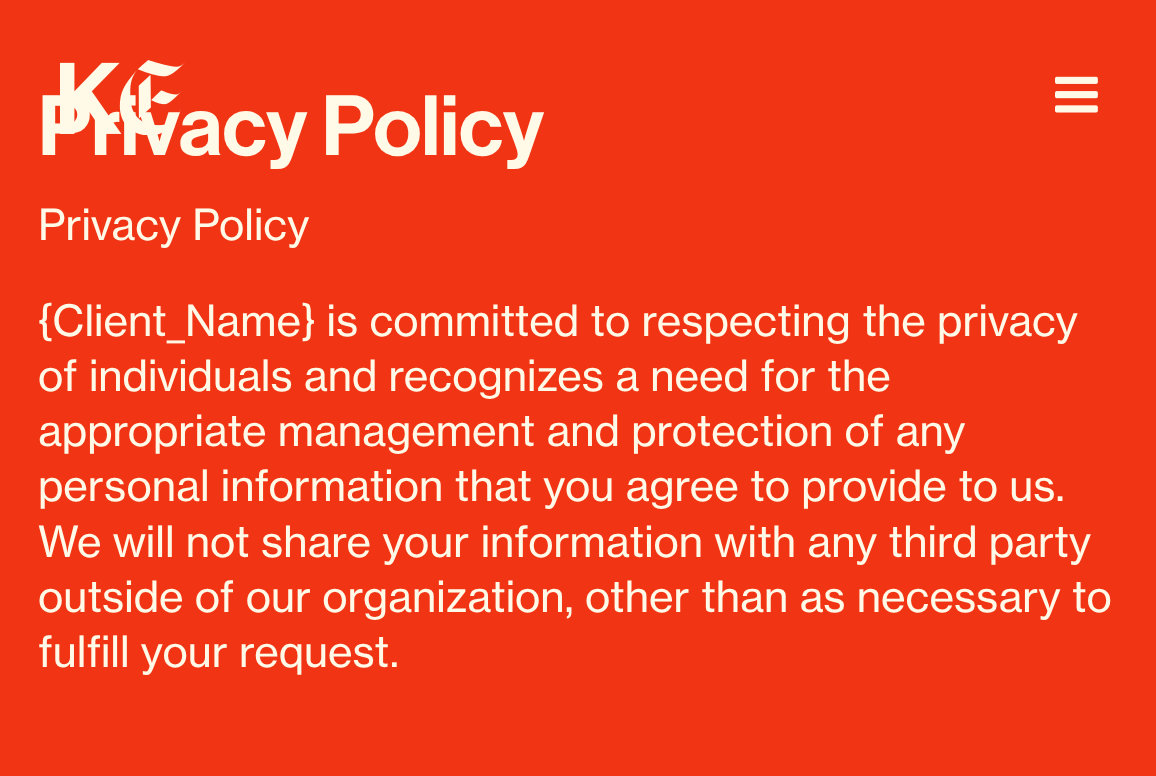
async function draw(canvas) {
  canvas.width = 1156
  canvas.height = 776
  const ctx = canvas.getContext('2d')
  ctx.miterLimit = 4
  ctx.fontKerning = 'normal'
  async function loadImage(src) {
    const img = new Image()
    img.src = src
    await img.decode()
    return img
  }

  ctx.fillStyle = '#f13413'
  ctx.fillRect(0, 0, 1156, 776)
  ctx.font = '500 83.5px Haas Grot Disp'
  ctx.fillStyle = '#fff9e8'
  ctx.fillText('Privacy Policy', 38, 155)
  ctx.drawImage(await loadImage('image0.png'), 60, 60, 125, 75)
  ctx.drawImage(await loadImage('image1.png'), 1055, 76, 43, 37)
  ctx.font = '42.5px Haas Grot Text'
  ctx.fillText('Privacy Policy', 38, 240)
  ctx.fillText('{Client_Name} is committed to respecting the privacy', 38, 336)
  ctx.fillText('of individuals and recognizes a need for the', 38, 391)
  ctx.fillText('appropriate management and protection of any', 38, 446)
  ctx.fillText('personal information that you agree to provide to us.', 38, 501)
  ctx.fillText('We will not share your information with any third party', 38, 557)
  ctx.fillText('outside of our organization, other than as necessary to', 38, 612)
  ctx.fillText('fulfill your request.', 38, 667)
}

draw(document.querySelector('canvas'))
